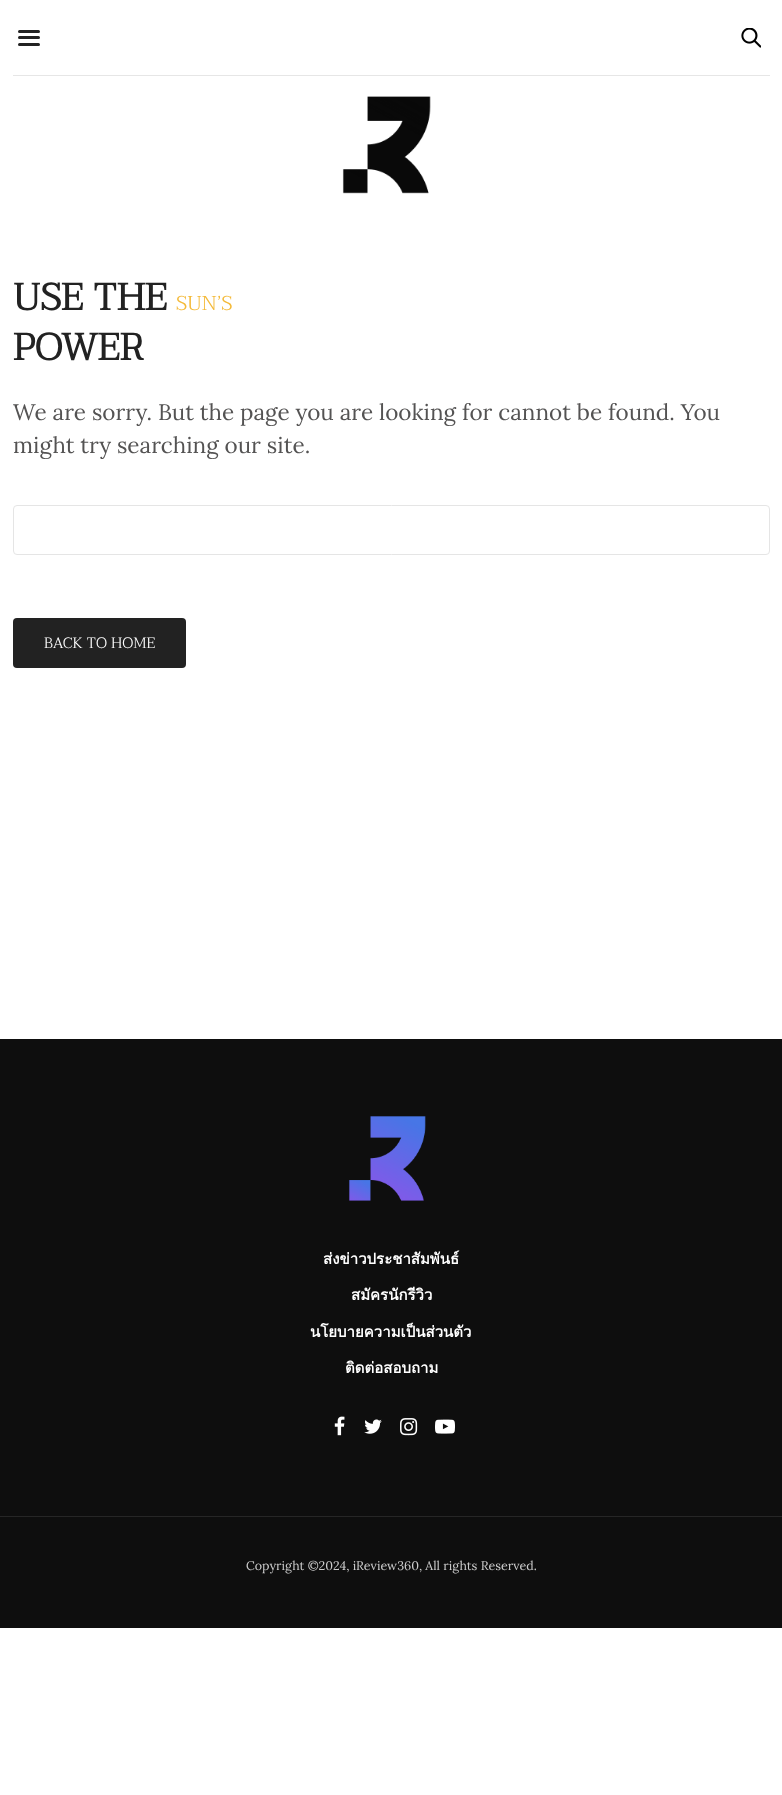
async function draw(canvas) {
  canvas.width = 782
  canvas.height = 1795
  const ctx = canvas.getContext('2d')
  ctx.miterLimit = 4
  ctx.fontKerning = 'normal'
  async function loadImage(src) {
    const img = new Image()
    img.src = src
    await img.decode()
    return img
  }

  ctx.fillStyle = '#fff'
  ctx.fillRect(0, 0, 782, 1795)
  ctx.fillStyle = '#e6e6e6'
  ctx.fillRect(13, 75, 757, 1)
  ctx.fillStyle = '#222'
  ctx.beginPath()
  ctx.roundRect(18, 30, 22, 3, 1.5)
  ctx.fill()
  ctx.beginPath()
  ctx.roundRect(18, 36, 22, 3, 1.5)
  ctx.fill()
  ctx.beginPath()
  ctx.roundRect(18, 43, 22, 3, 1.5)
  ctx.fill()
  ctx.drawImage(await loadImage('image0.png'), 741, 28, 20, 20)
  ctx.drawImage(await loadImage('image1.png'), 342, 96, 89, 98)
  ctx.font = 'bold 37.5px Taviraj'
  ctx.fillText('USE THE', 13, 310)
  ctx.font = '300 20px Taviraj'
  ctx.fillStyle = '#f4ba39'
  ctx.fillText('SUN’S', 176, 310)
  ctx.font = 'bold 37.5px Taviraj'
  ctx.fillStyle = '#222'
  ctx.fillText('POWER', 13, 360)
  ctx.font = '22.5px Lora'
  ctx.fillStyle = '#545353'
  ctx.fillText('We are sorry. But the page you are looking for cannot be found. You', 13, 420)
  ctx.fillText('might try searching our site.', 13, 453)
  ctx.beginPath()
  ctx.roundRect(13.5, 505.5, 756, 49, 3.5)
  ctx.strokeStyle = '#e5e5e5'
  ctx.stroke()
  ctx.fillStyle = '#222'
  ctx.beginPath()
  ctx.roundRect(13, 618, 173, 50, 4)
  ctx.fill()
  ctx.font = '300 15px Taviraj'
  ctx.fillStyle = '#fff'
  ctx.fillText('BACK TO HOME', 44, 648)
  ctx.fillStyle = '#0e0e0e'
  ctx.fillRect(0, 1039, 782, 477)
  ctx.drawImage(await loadImage('image2.png'), 349, 1116, 77, 85)
  ctx.font = 'bold 15px Loma'
  ctx.fillStyle = '#fff'
  ctx.fillText('ส่งข่าวประชาสัมพันธ์', 323, 1264)
  ctx.fillText('สมัครนักรีวิว', 351, 1300)
  ctx.fillText('นโยบายความเป็นส่วนตัว', 310, 1337)
  ctx.fillText('ติดต่อสอบถาม', 345, 1373)
  ctx.drawImage(await loadImage('image3.png'), 334, 1416, 11, 20)
  ctx.drawImage(await loadImage('image4.png'), 364, 1419, 18, 15)
  ctx.drawImage(await loadImage('image5.png'), 400, 1418, 18, 18)
  ctx.drawImage(await loadImage('image6.png'), 435, 1419, 20, 15)
  ctx.fillStyle = '#0e0e0e'
  ctx.fillRect(0, 1517, 782, 111)
  ctx.fillStyle = '#262626'
  ctx.fillRect(0, 1516, 782, 1)
  ctx.font = '12.5px Lora'
  ctx.fillStyle = '#ccc'
  ctx.fillText('Copyright ©2024, iReview360, All rights Reserved.', 246, 1570)
}

draw(document.querySelector('canvas'))
